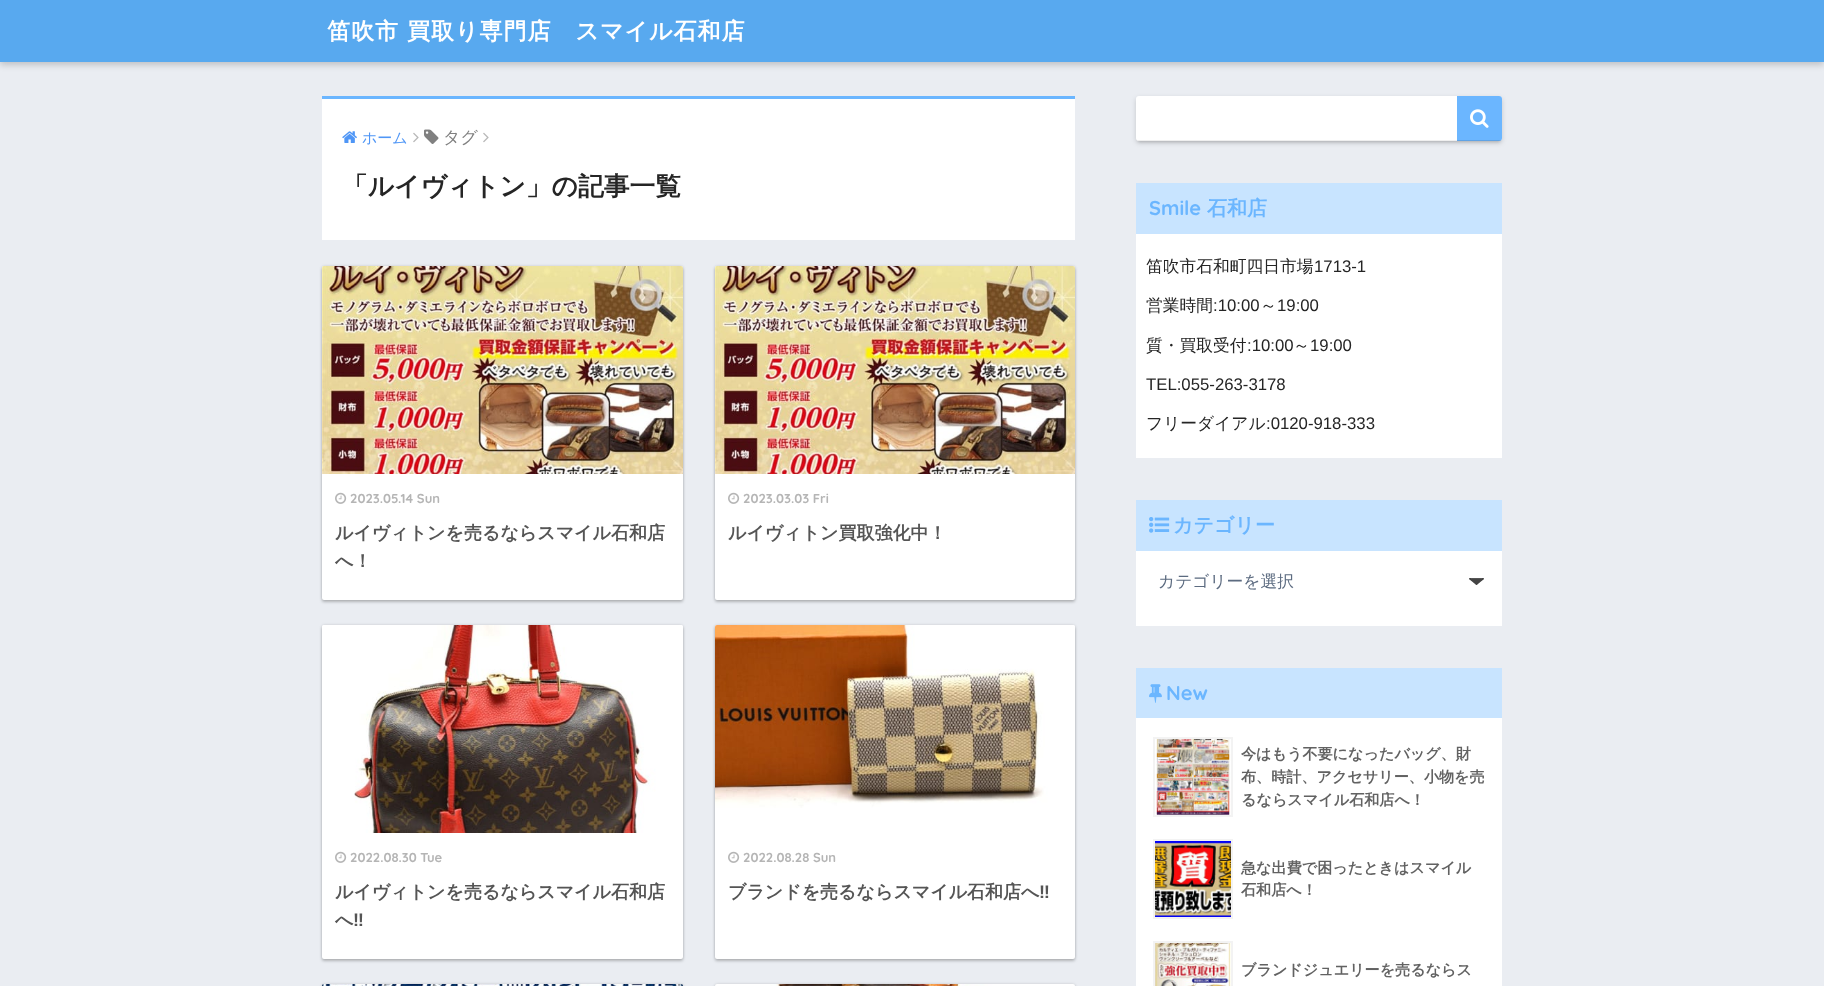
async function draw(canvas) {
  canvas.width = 1824
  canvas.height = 986
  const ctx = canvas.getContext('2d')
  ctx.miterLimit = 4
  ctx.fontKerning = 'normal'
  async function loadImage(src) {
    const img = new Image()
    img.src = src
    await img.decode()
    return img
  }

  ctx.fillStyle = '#eaedf2'
  ctx.fillRect(0, 0, 1824, 986)
  ctx.fillStyle = '#0000002e'
  ctx.filter = 'blur(3px)'
  ctx.beginPath()
  ctx.rect(0, 3, 1824, 62)
  ctx.fill()
  ctx.filter = 'none'
  ctx.fillStyle = '#58a9ef'
  ctx.fillRect(0, 0, 1824, 62)
  ctx.letterSpacing = '1px'
  ctx.font = 'bold 23px WenQuanYi Zen Hei'
  ctx.fillStyle = '#fff'
  ctx.fillText('笛吹市 買取り専門店　スマイル石和店', 327, 39)
  ctx.fillRect(322, 99, 753, 141)
  ctx.fillStyle = '#6bb6ff'
  ctx.fillRect(322, 96, 753, 3)
  ctx.drawImage(await loadImage('image0.png'), 342, 131, 15, 12)
  ctx.letterSpacing = '0px'
  ctx.font = '500 15px WenQuanYi Zen Hei'
  ctx.fillStyle = '#4f96f6'
  ctx.fillText('ホーム', 362, 143)
  ctx.drawImage(await loadImage('image1.png'), 413, 132, 6, 11)
  ctx.drawImage(await loadImage('image2.png'), 424, 129, 15, 15)
  ctx.font = '500 17px WenQuanYi Zen Hei'
  ctx.fillStyle = '#808080'
  ctx.fillText('タグ', 443, 143)
  ctx.drawImage(await loadImage('image1.png'), 483, 132, 6, 11)
  ctx.font = 'bold 25.75px WenQuanYi Zen Hei'
  ctx.fillStyle = '#252525'
  ctx.fillText('「ルイヴィトン」の記事一覧', 342, 195)
  ctx.fillStyle = '#00000038'
  ctx.filter = 'blur(1.5px)'
  ctx.beginPath()
  ctx.roundRect(322, 268, 361, 334, 2)
  ctx.fill()
  ctx.filter = 'none'
  ctx.fillStyle = '#0000001f'
  ctx.filter = 'blur(1.5px)'
  ctx.beginPath()
  ctx.roundRect(322, 266, 361, 334, 2)
  ctx.fill()
  ctx.filter = 'none'
  ctx.fillStyle = '#fff'
  ctx.beginPath()
  ctx.roundRect(322, 266, 361, 334, 2)
  ctx.fill()
  ctx.drawImage(await loadImage('image3.png'), 322, 266, 361, 208)
  ctx.drawImage(await loadImage('image4.png'), 335, 492, 12, 12)
  ctx.font = 'bold 13px Quicksand'
  ctx.fillStyle = '#b5b5b5'
  ctx.fillText('2023.05.14 Sun', 350, 503)
  ctx.font = 'bold 18px WenQuanYi Zen Hei'
  ctx.fillStyle = '#555'
  ctx.fillText('ルイヴィトンを売るならスマイル石和店', 335, 539)
  ctx.fillText('へ！', 335, 567)
  ctx.fillStyle = '#00000038'
  ctx.filter = 'blur(1.5px)'
  ctx.beginPath()
  ctx.roundRect(715, 268, 360, 334, 2)
  ctx.fill()
  ctx.filter = 'none'
  ctx.fillStyle = '#0000001f'
  ctx.filter = 'blur(1.5px)'
  ctx.beginPath()
  ctx.roundRect(715, 266, 360, 334, 2)
  ctx.fill()
  ctx.filter = 'none'
  ctx.fillStyle = '#fff'
  ctx.beginPath()
  ctx.roundRect(715, 266, 360, 334, 2)
  ctx.fill()
  ctx.drawImage(await loadImage('image5.png'), 715, 266, 360, 208)
  ctx.drawImage(await loadImage('image4.png'), 728, 492, 12, 12)
  ctx.font = 'bold 13px Quicksand'
  ctx.fillStyle = '#b5b5b5'
  ctx.fillText('2023.03.03 Fri', 743, 503)
  ctx.font = 'bold 18px WenQuanYi Zen Hei'
  ctx.fillStyle = '#555'
  ctx.fillText('ルイヴィトン買取強化中！', 728, 539)
  ctx.fillStyle = '#00000038'
  ctx.filter = 'blur(1.5px)'
  ctx.beginPath()
  ctx.roundRect(322, 627, 361, 334, 2)
  ctx.fill()
  ctx.filter = 'none'
  ctx.fillStyle = '#0000001f'
  ctx.filter = 'blur(1.5px)'
  ctx.beginPath()
  ctx.roundRect(322, 625, 361, 334, 2)
  ctx.fill()
  ctx.filter = 'none'
  ctx.fillStyle = '#fff'
  ctx.beginPath()
  ctx.roundRect(322, 625, 361, 334, 2)
  ctx.fill()
  ctx.drawImage(await loadImage('image6.png'), 322, 625, 361, 208)
  ctx.drawImage(await loadImage('image4.png'), 335, 851, 12, 12)
  ctx.font = 'bold 13px Quicksand'
  ctx.fillStyle = '#b5b5b5'
  ctx.fillText('2022.08.30 Tue', 350, 862)
  ctx.font = 'bold 18px WenQuanYi Zen Hei'
  ctx.fillStyle = '#555'
  ctx.fillText('ルイヴィトンを売るならスマイル石和店', 335, 898)
  ctx.fillText('へ', 335, 926)
  ctx.font = 'bold 18px Liberation Sans'
  ctx.fillText('‼', 353, 926)
  ctx.fillStyle = '#00000038'
  ctx.filter = 'blur(1.5px)'
  ctx.beginPath()
  ctx.roundRect(715, 627, 360, 334, 2)
  ctx.fill()
  ctx.filter = 'none'
  ctx.fillStyle = '#0000001f'
  ctx.filter = 'blur(1.5px)'
  ctx.beginPath()
  ctx.roundRect(715, 625, 360, 334, 2)
  ctx.fill()
  ctx.filter = 'none'
  ctx.fillStyle = '#fff'
  ctx.beginPath()
  ctx.roundRect(715, 625, 360, 334, 2)
  ctx.fill()
  ctx.drawImage(await loadImage('image7.png'), 715, 625, 360, 183)
  ctx.drawImage(await loadImage('image4.png'), 728, 851, 12, 12)
  ctx.font = 'bold 13px Quicksand'
  ctx.fillStyle = '#b5b5b5'
  ctx.fillText('2022.08.28 Sun', 743, 862)
  ctx.font = 'bold 18px WenQuanYi Zen Hei'
  ctx.fillStyle = '#555'
  ctx.fillText('ブランドを売るならスマイル石和店へ', 728, 898)
  ctx.font = 'bold 18px Liberation Sans'
  ctx.fillText('‼', 1039, 898)
  ctx.fillStyle = '#00000038'
  ctx.filter = 'blur(1.5px)'
  ctx.beginPath()
  ctx.roundRect(322, 986, 361, 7, 2)
  ctx.fill()
  ctx.filter = 'none'
  ctx.fillStyle = '#0000001f'
  ctx.filter = 'blur(1.5px)'
  ctx.beginPath()
  ctx.roundRect(322, 984, 361, 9, 2)
  ctx.fill()
  ctx.filter = 'none'
  ctx.drawImage(await loadImage('image8.png'), 322, 984, 361, 2)
  ctx.fillStyle = '#00000038'
  ctx.filter = 'blur(1.5px)'
  ctx.beginPath()
  ctx.roundRect(715, 986, 360, 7, 2)
  ctx.fill()
  ctx.filter = 'none'
  ctx.fillStyle = '#0000001f'
  ctx.filter = 'blur(1.5px)'
  ctx.beginPath()
  ctx.roundRect(715, 984, 360, 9, 2)
  ctx.fill()
  ctx.filter = 'none'
  ctx.drawImage(await loadImage('image9.png'), 715, 984, 360, 2)
  ctx.fillStyle = '#00000026'
  ctx.filter = 'blur(1.5px)'
  ctx.beginPath()
  ctx.roundRect(1138, 101, 362, 41, 1)
  ctx.fill()
  ctx.filter = 'none'
  ctx.filter = 'blur(2.5px)'
  ctx.beginPath()
  ctx.roundRect(1136, 98, 366, 45, 3)
  ctx.fill()
  ctx.filter = 'none'
  ctx.fillStyle = '#fff'
  ctx.beginPath()
  ctx.roundRect(1136, 96, 366, 45, 3)
  ctx.fill()
  ctx.fillStyle = '#efefef'
  ctx.fillRect(1138, 140, 363, 1)
  ctx.fillStyle = '#6bb6ff'
  ctx.beginPath()
  ctx.roundRect(1457, 96, 45, 45, [0, 3, 3, 0])
  ctx.fill()
  ctx.fillStyle = '#0000001a'
  ctx.fillRect(1457, 140, 44, 1)
  ctx.drawImage(await loadImage('image10.png'), 1470, 109, 19, 19)
  ctx.fillStyle = '#fff'
  ctx.fillRect(1136, 234, 366, 224)
  ctx.fillStyle = '#c8e4ff'
  ctx.fillRect(1136, 183, 366, 51)
  ctx.font = 'bold 20px Quicksand'
  ctx.fillStyle = '#6bb6ff'
  ctx.fillText('Smile', 1149, 215)
  ctx.font = 'bold 20px WenQuanYi Zen Hei'
  ctx.fillText('石和店', 1207, 215)
  ctx.font = '500 16.75px WenQuanYi Zen Hei'
  ctx.fillStyle = '#252525'
  ctx.fillText('笛吹市石和町四日市場', 1146, 272)
  ctx.font = '16.75px Liberation Sans'
  ctx.fillText('1713-1', 1314, 272)
  ctx.font = '500 16.75px WenQuanYi Zen Hei'
  ctx.fillText('営業時間', 1146, 311)
  ctx.font = '16.75px Liberation Sans'
  ctx.fillText(':10:00', 1213, 311)
  ctx.font = '500 16.75px WenQuanYi Zen Hei'
  ctx.fillText('～', 1260, 311)
  ctx.font = '16.75px Liberation Sans'
  ctx.fillText('19:00', 1277, 311)
  ctx.font = '500 16.75px WenQuanYi Zen Hei'
  ctx.fillText('質・買取受付', 1146, 351)
  ctx.font = '16.75px Liberation Sans'
  ctx.fillText(':10:00', 1247, 351)
  ctx.font = '500 16.75px WenQuanYi Zen Hei'
  ctx.fillText('～', 1293, 351)
  ctx.font = '16.75px Liberation Sans'
  ctx.fillText('19:00', 1310, 351)
  ctx.fillText('TEL:055-263-3178', 1146, 390)
  ctx.font = '500 16.75px WenQuanYi Zen Hei'
  ctx.fillText('フリーダイアル', 1146, 429)
  ctx.font = '16.75px Liberation Sans'
  ctx.fillText(':0120-918-333', 1266, 429)
  ctx.fillStyle = '#fff'
  ctx.fillRect(1136, 551, 366, 75)
  ctx.fillStyle = '#c8e4ff'
  ctx.fillRect(1136, 500, 366, 51)
  ctx.drawImage(await loadImage('image11.png'), 1149, 517, 21, 16)
  ctx.font = 'bold 20px WenQuanYi Zen Hei'
  ctx.fillStyle = '#6bb6ff'
  ctx.fillText('カテゴリー', 1173, 532)
  ctx.drawImage(await loadImage('image12.png'), 1469, 578, 15, 7)
  ctx.font = '500 16.75px WenQuanYi Zen Hei'
  ctx.fillStyle = '#5c6b80'
  ctx.fillText('カテゴリーを選択', 1158, 587)
  ctx.fillStyle = '#fff'
  ctx.fillRect(1136, 718, 366, 268)
  ctx.fillStyle = '#c8e4ff'
  ctx.fillRect(1136, 668, 366, 50)
  ctx.drawImage(await loadImage('image13.png'), 1149, 684, 13, 19)
  ctx.font = 'bold 20px Quicksand'
  ctx.fillStyle = '#6bb6ff'
  ctx.fillText('New', 1166, 700)
  ctx.strokeStyle = '#f3f3f3'
  ctx.lineWidth = 2
  ctx.strokeRect(1154, 738, 78, 78)
  ctx.drawImage(await loadImage('image14.png'), 1155, 739, 76, 76)
  ctx.font = 'bold 15.1px WenQuanYi Zen Hei'
  ctx.fillStyle = '#626262'
  ctx.fillText('今はもう不要になったバッグ、財', 1241, 759)
  ctx.fillText('布、時計、アクセサリー、小物を売', 1241, 782)
  ctx.fillText('るならスマイル石和店へ！', 1241, 805)
  ctx.strokeRect(1154, 840, 78, 78)
  ctx.drawImage(await loadImage('image15.png'), 1155, 841, 76, 76)
  ctx.fillText('急な出費で困ったときはスマイル', 1241, 873)
  ctx.fillText('石和店へ！', 1241, 895)
  ctx.strokeRect(1154, 942, 78, 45)
  ctx.drawImage(await loadImage('image16.png'), 1155, 943, 76, 43)
  ctx.fillText('ブランドジュエリーを売るならス', 1241, 975)
}

draw(document.querySelector('canvas'))
